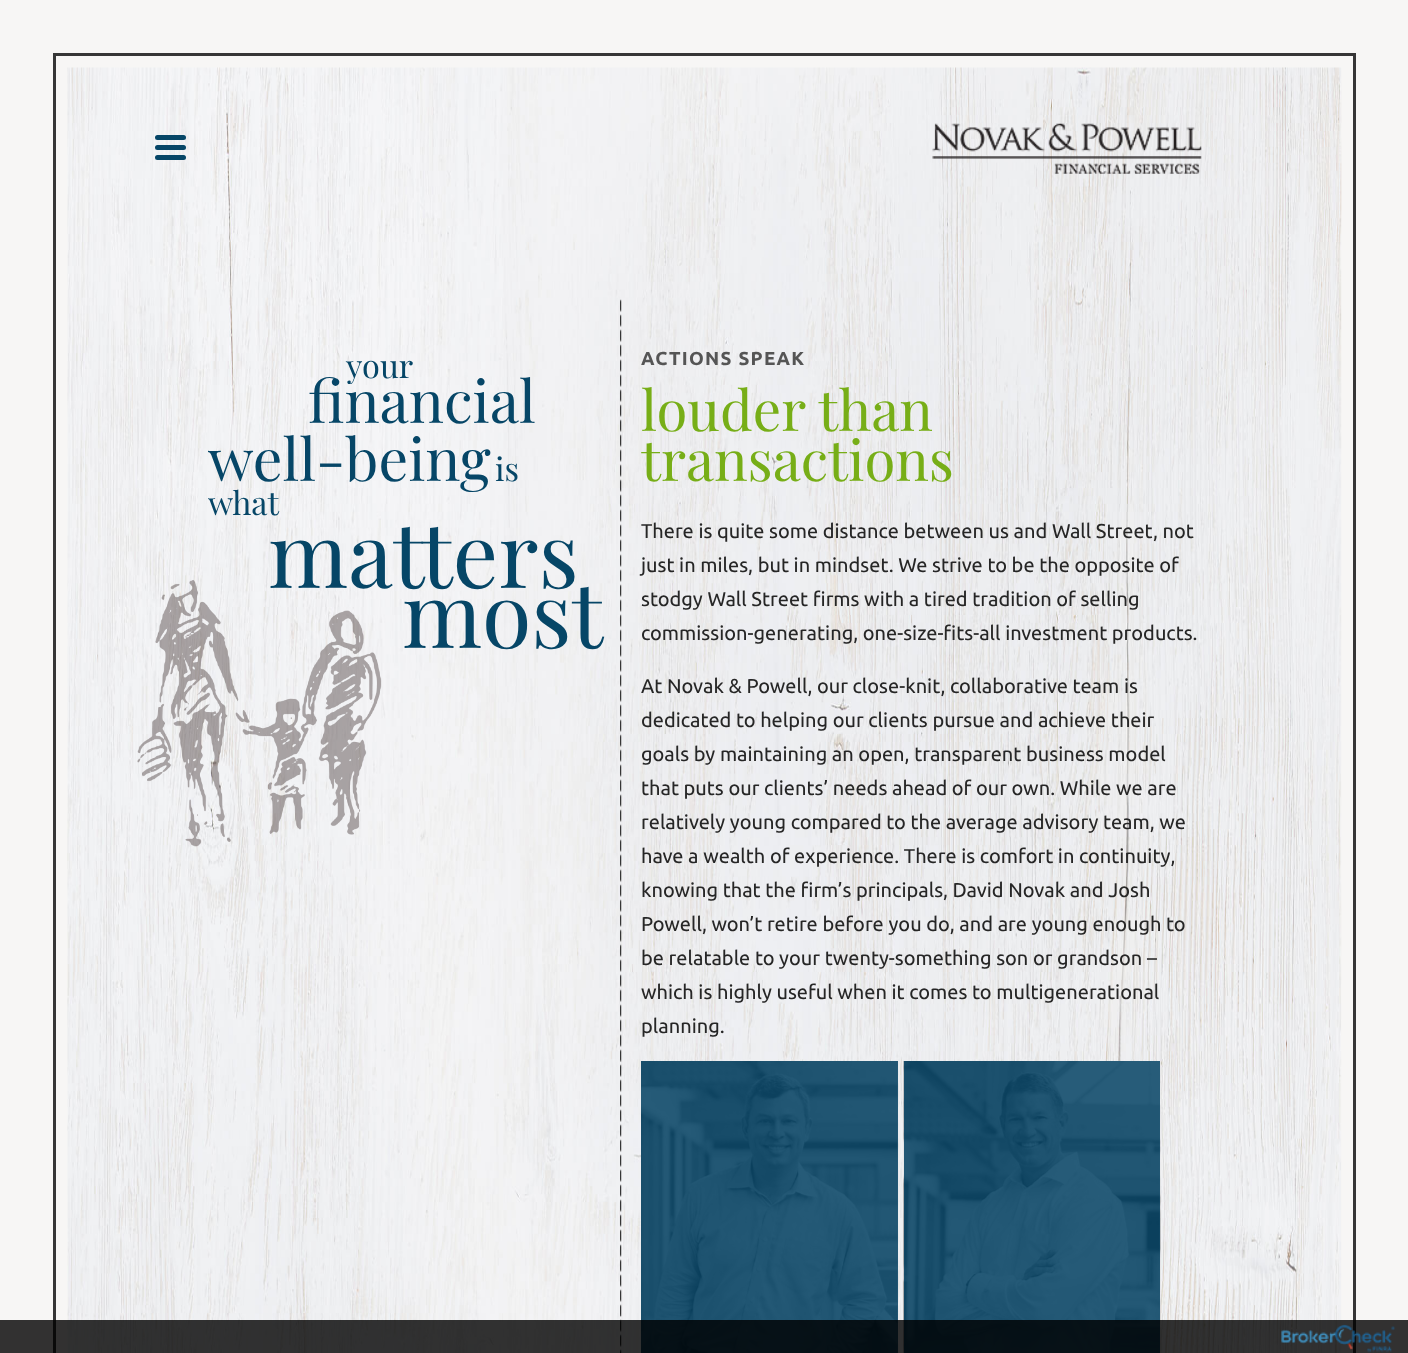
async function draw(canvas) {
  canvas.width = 1408
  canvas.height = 1353
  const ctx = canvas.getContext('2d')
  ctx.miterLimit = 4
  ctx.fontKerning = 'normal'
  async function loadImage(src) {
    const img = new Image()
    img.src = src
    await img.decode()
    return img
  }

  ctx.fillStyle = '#f7f6f5'
  ctx.fillRect(0, 0, 1408, 1353)
  ctx.strokeStyle = '#363636'
  ctx.lineWidth = 3
  ctx.strokeRect(54.5, 54.5, 1300, 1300)
  ctx.drawImage(await loadImage('image0.png'), 67, 67, 1275, 1286)
  ctx.fillStyle = '#064667'
  ctx.beginPath()
  ctx.roundRect(155, 145, 31, 5, 2.5)
  ctx.fill()
  ctx.beginPath()
  ctx.roundRect(155, 135, 31, 5, 2.5)
  ctx.fill()
  ctx.beginPath()
  ctx.roundRect(155, 155, 31, 5, 2.5)
  ctx.fill()
  ctx.drawImage(await loadImage('image1.png'), 932, 123, 270, 51)
  ctx.font = '32.5px Playfair Display'
  ctx.fillText('your', 346, 378)
  ctx.font = '58.75px Playfair Display'
  ctx.fillText('financial', 308, 423)
  ctx.fillText('well-being', 208, 481)
  ctx.font = '32.5px Playfair Display'
  ctx.fillText('is', 495, 481)
  ctx.fillText('what', 208, 515)
  ctx.font = '90px Playfair Display'
  ctx.fillText('matters', 268, 588)
  ctx.fillText('most', 402, 648)
  ctx.drawImage(await loadImage('image2.png'), 137, 580, 245, 267)
  ctx.drawImage(await loadImage('image3.png'), 620, 299, 2, 1054)
  ctx.letterSpacing = '1.25px'
  ctx.font = 'bold 18.75px Ubuntu'
  ctx.fillStyle = '#555'
  ctx.fillText('ACTIONS SPEAK', 641, 365)
  ctx.letterSpacing = '0px'
  ctx.font = '56.25px Playfair Display'
  ctx.fillStyle = '#77ae17'
  ctx.fillText('louder than', 641, 431)
  ctx.fillText('transactions', 641, 481)
  ctx.font = '20px Ubuntu'
  ctx.fillStyle = '#262626'
  ctx.fillText('There is quite some distance between us and Wall Street, not', 641, 538)
  ctx.fillText('just in miles, but in mindset. We strive to be the opposite of', 641, 572)
  ctx.fillText('stodgy Wall Street firms with a tired tradition of selling', 641, 606)
  ctx.fillText('commission-generating, one-size-fits-all investment products.', 641, 640)
  ctx.fillText('At Novak & Powell, our close-knit, collaborative team is', 641, 693)
  ctx.fillText('dedicated to helping our clients pursue and achieve their', 641, 727)
  ctx.fillText('goals by maintaining an open, transparent business model', 641, 761)
  ctx.fillText('that puts our clients’ needs ahead of our own. While we are', 641, 795)
  ctx.fillText('relatively young compared to the average advisory team, we', 641, 829)
  ctx.fillText('have a wealth of experience. There is comfort in continuity,', 641, 863)
  ctx.fillText('knowing that the firm’s principals, David Novak and Josh', 641, 897)
  ctx.fillText('Powell, won’t retire before you do, and are young enough to', 641, 931)
  ctx.fillText('be relatable to your twenty-something son or grandson –', 641, 965)
  ctx.fillText('which is highly useful when it comes to multigenerational', 641, 999)
  ctx.fillText('planning.', 641, 1033)
  ctx.drawImage(await loadImage('image4.png'), 641, 1061, 258, 292)
  ctx.fillStyle = '#094667e0'
  ctx.fillRect(641, 1061, 257, 292)
  ctx.drawImage(await loadImage('image5.png'), 903, 1061, 258, 292)
  ctx.fillRect(904, 1061, 256, 292)
  ctx.fillStyle = '#000000cc'
  ctx.fillRect(0, 1320, 1408, 33)
  ctx.drawImage(await loadImage('image6.png'), 1281, 1324, 114, 29)
}

draw(document.querySelector('canvas'))
